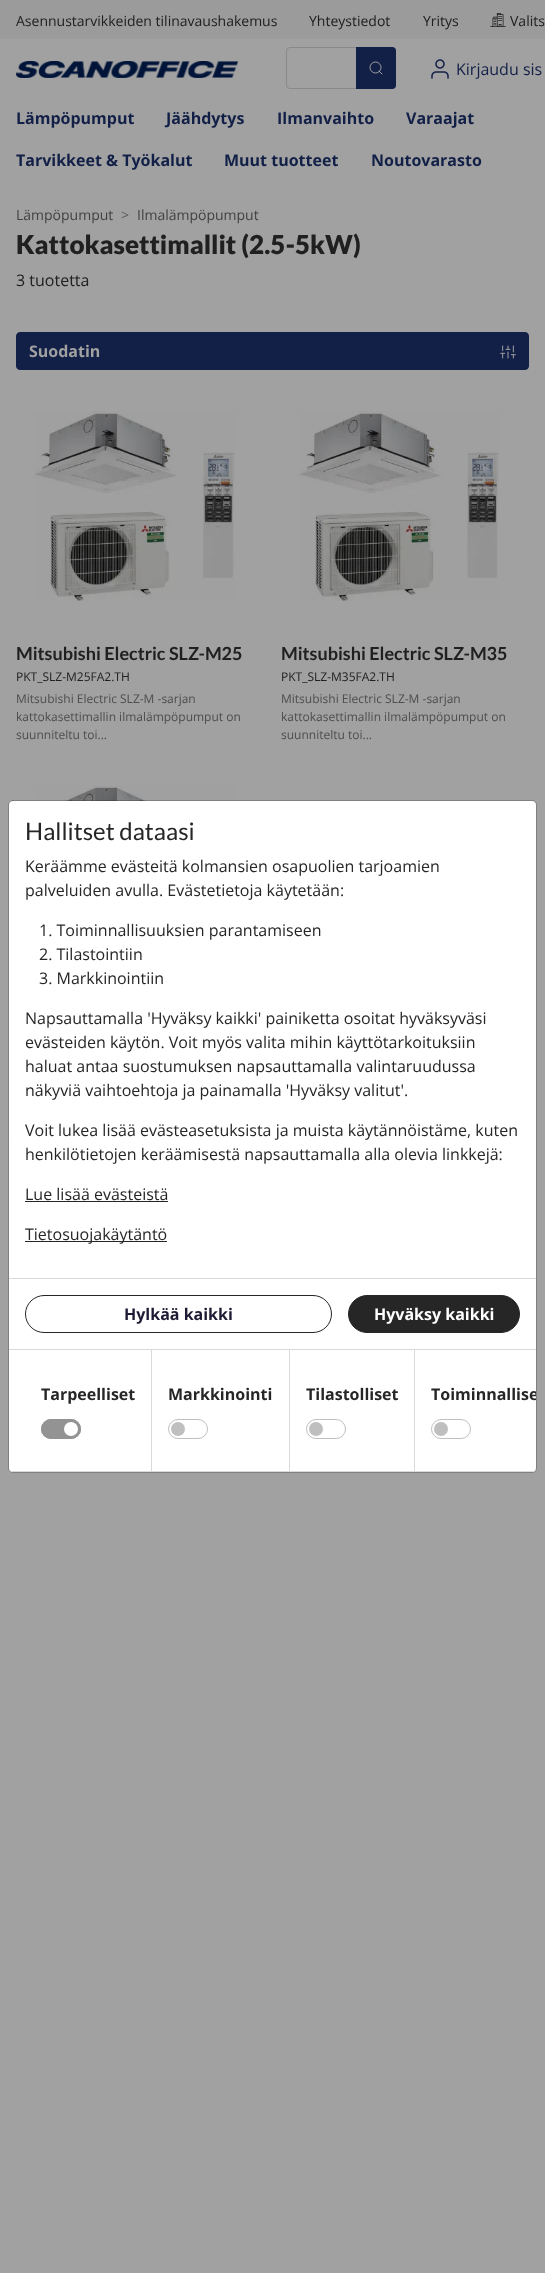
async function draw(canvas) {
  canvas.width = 545
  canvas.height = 2273
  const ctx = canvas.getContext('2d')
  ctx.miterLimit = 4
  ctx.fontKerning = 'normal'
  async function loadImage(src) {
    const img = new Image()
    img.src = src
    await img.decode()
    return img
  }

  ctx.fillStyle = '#a1a1a1'
  ctx.fillRect(0, 0, 545, 2273)
  ctx.fillStyle = '#9b9b9b'
  ctx.fillRect(0, 0, 545, 39)
  ctx.font = '14px "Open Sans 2"'
  ctx.fillStyle = '#202020'
  ctx.fillText('Asennustarvikkeiden tilinavaushakemus', 16, 26)
  ctx.fillText('Yhteystiedot', 309, 26)
  ctx.fillText('Yritys', 423, 26)
  ctx.drawImage(await loadImage('image0.png'), 490, 13, 16, 14)
  ctx.fillText('Valits', 510, 26)
  ctx.drawImage(await loadImage('image1.png'), 16, 61, 222, 17)
  ctx.beginPath()
  ctx.roundRect(286.5, 47.5, 109, 41, 3.5)
  ctx.strokeStyle = '#898989'
  ctx.stroke()
  ctx.fillStyle = '#122047'
  ctx.beginPath()
  ctx.roundRect(356, 47, 40, 42, [0, 4, 4, 0])
  ctx.fill()
  ctx.beginPath()
  ctx.arc(375.5, 67.5, 5.5, 0, 2 * Math.PI)
  ctx.strokeStyle = '#a1a1a1'
  ctx.stroke()
  ctx.beginPath()
  ctx.moveTo(382, 74)
  ctx.lineTo(379, 71)
  ctx.lineCap = 'round'
  ctx.lineJoin = 'round'
  ctx.stroke()
  ctx.drawImage(await loadImage('image2.png'), 431, 59, 18, 20)
  ctx.font = '16px "Open Sans 2"'
  ctx.fillText('Kirjaudu sis', 456, 75)
  ctx.font = 'bold 16px Open Sans'
  ctx.fillText('Lämpöpumput', 16, 124)
  ctx.fillText('Jäähdytys', 166, 124)
  ctx.fillText('Ilmanvaihto', 277, 124)
  ctx.fillText('Varaajat', 406, 124)
  ctx.fillText('Tarvikkeet & Työkalut', 16, 166)
  ctx.fillText('Muut tuotteet', 224, 166)
  ctx.fillText('Noutovarasto', 371, 166)
  ctx.font = '14px Open Sans'
  ctx.fillStyle = '#424242'
  ctx.fillText('Lämpöpumput', 16, 220)
  ctx.fillStyle = '#5d5d5d'
  ctx.fillText('>', 121, 220)
  ctx.fillStyle = '#424242'
  ctx.fillText('Ilmalämpöpumput', 137, 220)
  ctx.font = '900 26px Lato'
  ctx.fillStyle = '#202020'
  ctx.fillText('Kattokasettimallit (2.5-5kW)', 16, 254)
  ctx.font = '16px Open Sans'
  ctx.fillText('3 tuotetta', 16, 286)
  ctx.fillStyle = '#122047'
  ctx.beginPath()
  ctx.roundRect(16.5, 332.5, 512, 37, 3.5)
  ctx.fill()
  ctx.strokeStyle = '#122047'
  ctx.lineJoin = 'miter'
  ctx.stroke()
  ctx.font = 'bold 16px Open Sans'
  ctx.fillStyle = '#a1a1a1'
  ctx.fillText('Suodatin', 29, 357)
  ctx.drawImage(await loadImage('image3.png'), 500, 345, 16, 14)
  ctx.drawImage(await loadImage('image4.png'), 34, 411, 201, 190)
  ctx.font = 'bold 18px Lato'
  ctx.fillStyle = '#202020'
  ctx.fillText('Mitsubishi Electric SLZ-M25', 16, 660)
  ctx.font = '12px Open Sans'
  ctx.fillText('PKT_SLZ-M25FA2.TH', 16, 681)
  ctx.fillStyle = '#4d4d4d'
  ctx.fillText('Mitsubishi Electric SLZ-M -sarjan', 16, 703)
  ctx.fillText('kattokasettimallin ilmalämpöpumput on', 16, 721)
  ctx.fillText('suunniteltu toi...', 16, 739)
  ctx.drawImage(await loadImage('image5.png'), 299, 411, 200, 190)
  ctx.font = 'bold 18px Lato'
  ctx.fillStyle = '#202020'
  ctx.fillText('Mitsubishi Electric SLZ-M35', 281, 660)
  ctx.font = '12px Open Sans'
  ctx.fillText('PKT_SLZ-M35FA2.TH', 281, 681)
  ctx.fillStyle = '#4d4d4d'
  ctx.fillText('Mitsubishi Electric SLZ-M -sarjan', 281, 703)
  ctx.fillText('kattokasettimallin ilmalämpöpumput on', 281, 721)
  ctx.fillText('suunniteltu toi...', 281, 739)
  ctx.drawImage(await loadImage('image6.png'), 34, 785, 202, 16)
  ctx.fillStyle = '#fff'
  ctx.beginPath()
  ctx.roundRect(9, 801, 527, 671, 4)
  ctx.fill()
  ctx.beginPath()
  ctx.roundRect(8.5, 800.5, 528, 672, 4.5)
  ctx.strokeStyle = '#00000033'
  ctx.stroke()
  ctx.font = '24px Lato'
  ctx.fillStyle = '#262626'
  ctx.fillText('Hallitset dataasi', 25, 840)
  ctx.font = '16px "Open Sans 2"'
  ctx.fillText('Keräämme evästeitä kolmansien osapuolien tarjoamien', 25, 872)
  ctx.fillText('palveluiden avulla. Evästetietoja käytetään:', 25, 896)
  ctx.fillText('1. Toiminnallisuuksien parantamiseen', 39, 936)
  ctx.fillText('2. Tilastointiin', 39, 960)
  ctx.fillText('3. Markkinointiin', 39, 984)
  ctx.fillText('Napsauttamalla \'Hyväksy kaikki\' painiketta osoitat hyväksyväsi', 25, 1024)
  ctx.fillText('evästeiden käytön. Voit myös valita mihin käyttötarkoituksiin', 25, 1048)
  ctx.fillText('haluat antaa suostumuksen napsauttamalla valintaruudussa', 25, 1072)
  ctx.fillText('näkyviä vaihtoehtoja ja painamalla \'Hyväksy valitut\'.', 25, 1096)
  ctx.fillText('Voit lukea lisää evästeasetuksista ja muista käytännöistäme, kuten', 25, 1136)
  ctx.fillText('henkilötietojen keräämisestä napsauttamalla alla olevia linkkejä:', 25, 1160)
  ctx.fillText('Lue lisää evästeistä', 25, 1200)
  ctx.fillRect(25, 1201, 143, 1)
  ctx.fillRect(25, 1241, 142, 1)
  ctx.fillText('Tietosuojakäytäntö', 25, 1240)
  ctx.fillStyle = '#d9d9d9'
  ctx.fillRect(9, 1278, 527, 1)
  ctx.beginPath()
  ctx.roundRect(25.5, 1295.5, 306, 37, 18.5)
  ctx.strokeStyle = '#262626'
  ctx.stroke()
  ctx.font = 'bold 16px Open Sans'
  ctx.fillStyle = '#1e1a33'
  ctx.fillText('Hylkää kaikki', 124, 1320)
  ctx.fillStyle = '#262626'
  ctx.beginPath()
  ctx.roundRect(348.5, 1295.5, 171, 37, 18.5)
  ctx.fill()
  ctx.stroke()
  ctx.fillStyle = '#fff'
  ctx.fillText('Hyväksy kaikki', 374, 1320)
  ctx.fillStyle = '#d9d9d9'
  ctx.fillRect(9, 1349, 527, 1)
  ctx.save()
  ctx.beginPath()
  ctx.roundRect(9, 801, 527, 671, 4)
  ctx.clip()
  ctx.fillRect(9, 1471, 527, 1)
  ctx.restore()
  ctx.fillRect(151, 1350, 1, 121)
  ctx.fillStyle = '#262626'
  ctx.fillText('Tarpeelliset', 41, 1400)
  ctx.fillStyle = '#939393'
  ctx.beginPath()
  ctx.roundRect(41, 1419, 40, 20, 10)
  ctx.fill()
  ctx.fillStyle = '#fff'
  ctx.beginPath()
  ctx.arc(71, 1429, 7, 0, 2 * Math.PI)
  ctx.fill()
  ctx.beginPath()
  ctx.roundRect(41.5, 1419.5, 39, 19, 9.5)
  ctx.strokeStyle = '#939393'
  ctx.stroke()
  ctx.fillStyle = '#d9d9d9'
  ctx.fillRect(289, 1350, 1, 121)
  ctx.fillStyle = '#262626'
  ctx.fillText('Markkinointi', 168, 1400)
  ctx.fillStyle = '#bfbfbf'
  ctx.beginPath()
  ctx.arc(178, 1429, 7, 0, 2 * Math.PI)
  ctx.fill()
  ctx.beginPath()
  ctx.roundRect(168.5, 1419.5, 39, 19, 9.5)
  ctx.strokeStyle = '#bfbfbf'
  ctx.stroke()
  ctx.fillStyle = '#d9d9d9'
  ctx.fillRect(414, 1350, 1, 121)
  ctx.fillStyle = '#262626'
  ctx.fillText('Tilastolliset', 306, 1400)
  ctx.fillStyle = '#bfbfbf'
  ctx.beginPath()
  ctx.arc(316, 1429, 7, 0, 2 * Math.PI)
  ctx.fill()
  ctx.beginPath()
  ctx.roundRect(306.5, 1419.5, 39, 19, 9.5)
  ctx.stroke()
  ctx.save()
  ctx.beginPath()
  ctx.roundRect(9, 801, 527, 671, 4)
  ctx.clip()
  ctx.fillStyle = '#262626'
  ctx.fillText('Toiminnallise', 431, 1400)
  ctx.restore()
  ctx.beginPath()
  ctx.arc(441, 1429, 7, 0, 2 * Math.PI)
  ctx.fill()
  ctx.beginPath()
  ctx.roundRect(431.5, 1419.5, 39, 19, 9.5)
  ctx.stroke()
}

draw(document.querySelector('canvas'))
